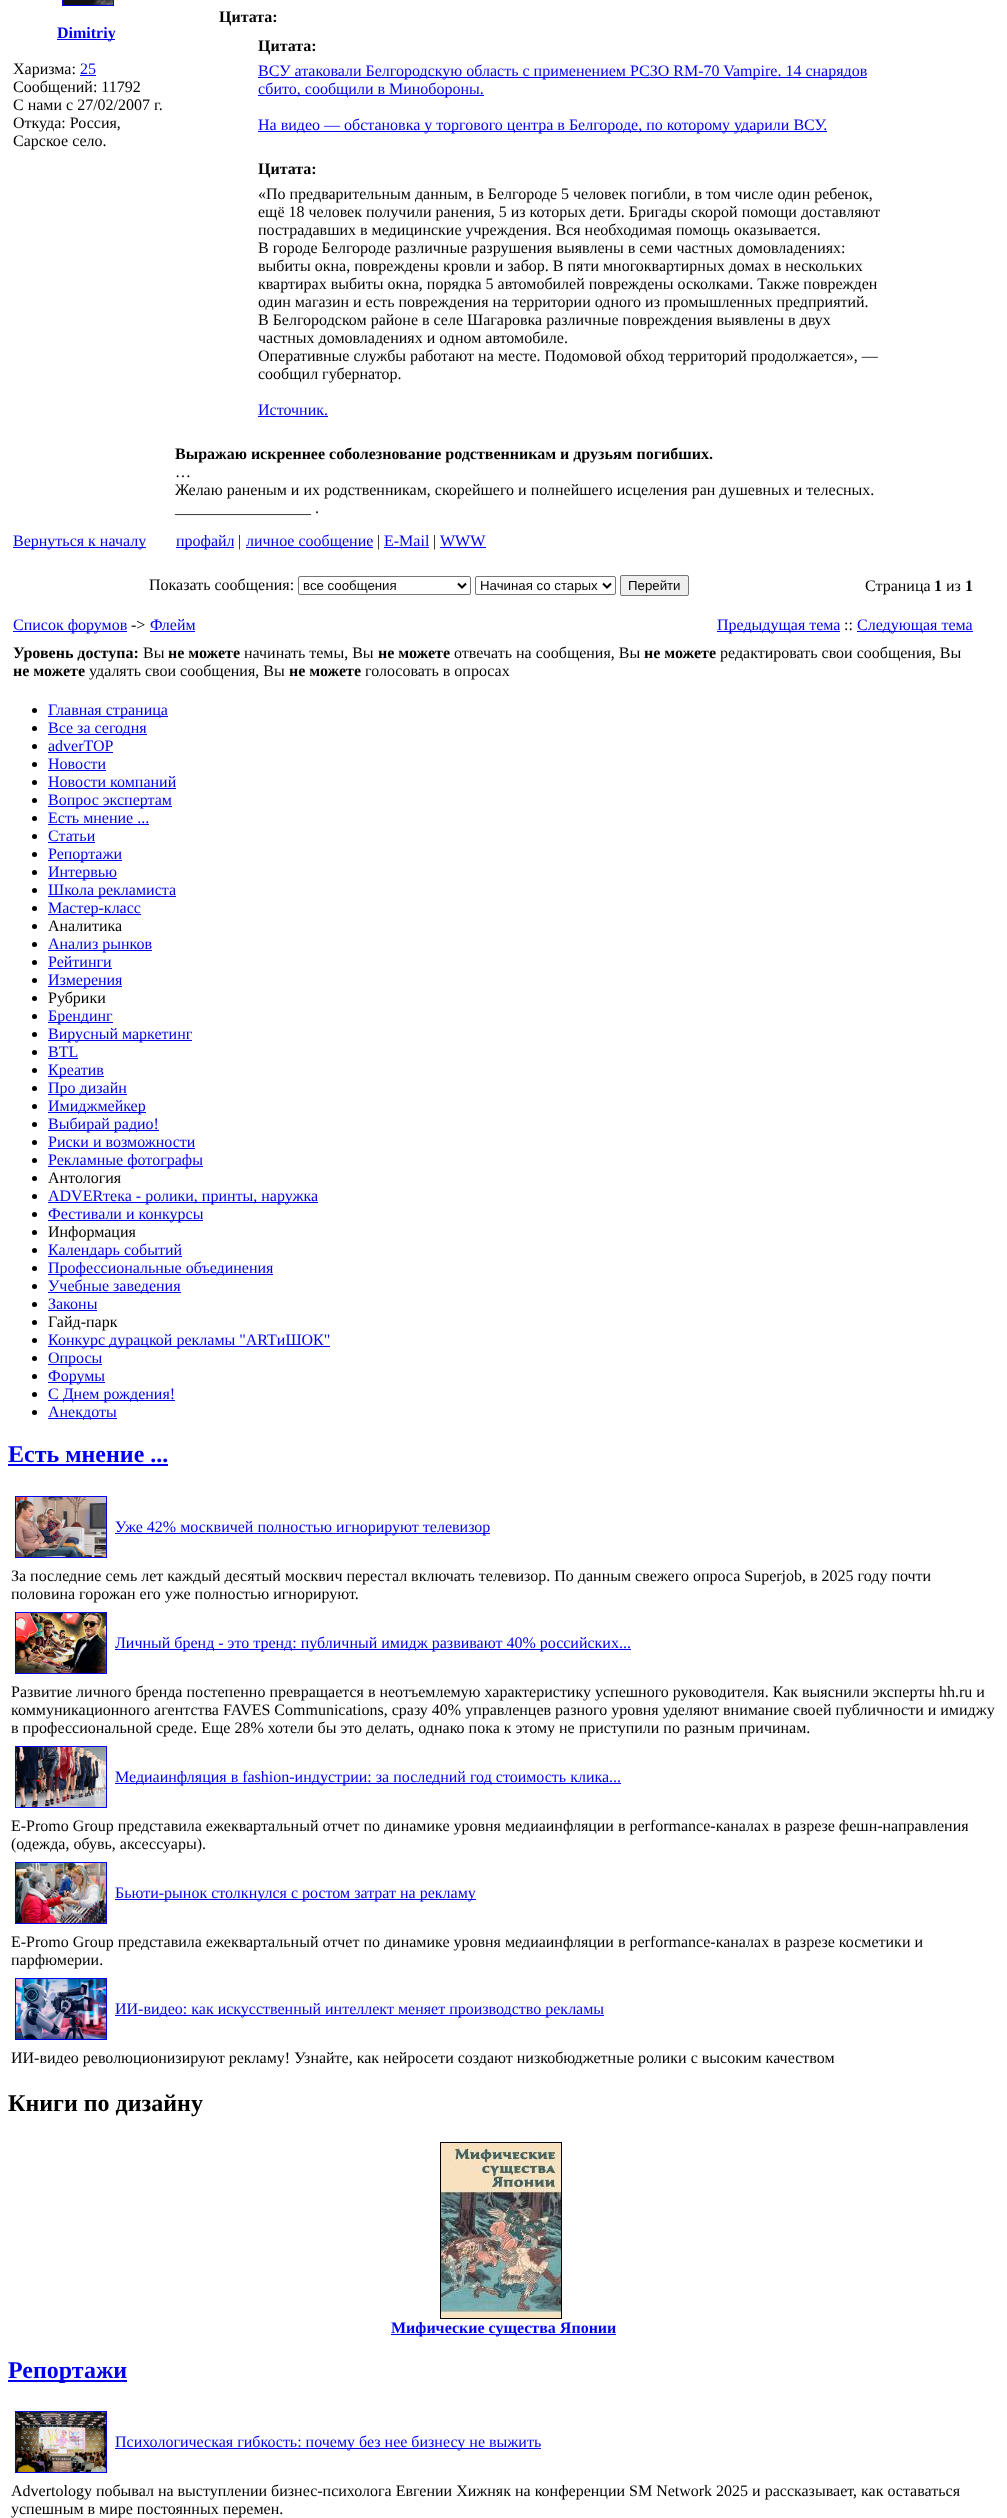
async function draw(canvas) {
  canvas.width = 1007
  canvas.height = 2518
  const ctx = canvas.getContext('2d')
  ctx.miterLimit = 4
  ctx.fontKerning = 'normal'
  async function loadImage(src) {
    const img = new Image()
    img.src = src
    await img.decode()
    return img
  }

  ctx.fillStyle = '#fff'
  ctx.fillRect(0, 0, 1007, 2518)
  ctx.strokeStyle = '#00e'
  ctx.strokeRect(62.5, -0.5, 51, 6)
  ctx.drawImage(await loadImage('image0.png'), 63, 0, 50, 5)
  ctx.fillStyle = '#00e'
  ctx.fillRect(57, 39, 58, 1)
  ctx.font = 'bold 16px Liberation Serif'
  ctx.fillText('Dimitriy', 57, 38)
  ctx.font = '16px Liberation Serif'
  ctx.fillStyle = '#000'
  ctx.fillText('Харизма:', 13, 74)
  ctx.fillStyle = '#00e'
  ctx.fillText('25', 80, 74)
  ctx.fillRect(80, 75, 16, 1)
  ctx.fillStyle = '#000'
  ctx.fillText('Сообщений: 11792', 13, 92)
  ctx.fillText('С нами с 27/02/2007 г.', 13, 110)
  ctx.fillText('Откуда: Россия,', 13, 128)
  ctx.fillText('Сарское село.', 13, 146)
  ctx.font = 'bold 16px Liberation Serif'
  ctx.fillText('Цитата:', 219, 22)
  ctx.fillText('Цитата:', 258, 51)
  ctx.fillStyle = '#00e'
  ctx.fillRect(258, 77, 609, 1)
  ctx.font = '16px Liberation Serif'
  ctx.fillText('ВСУ атаковали Белгородскую область с применением РСЗО RM-70 Vampire. 14 снарядов', 258, 76)
  ctx.fillRect(258, 95, 226, 1)
  ctx.fillText('сбито, сообщили в Минобороны.', 258, 94)
  ctx.fillRect(258, 131, 569, 1)
  ctx.fillText('На видео — обстановка у торгового центра в Белгороде, по которому ударили ВСУ.', 258, 130)
  ctx.font = 'bold 16px Liberation Serif'
  ctx.fillStyle = '#000'
  ctx.fillText('Цитата:', 258, 174)
  ctx.font = '16px Liberation Serif'
  ctx.fillText('«По предварительным данным, в Белгороде 5 человек погибли, в том числе один ребенок,', 258, 199)
  ctx.fillText('ещё 18 человек получили ранения, 5 из которых дети. Бригады скорой помощи доставляют', 258, 217)
  ctx.fillText('пострадавших в медицинские учреждения. Вся необходимая помощь оказывается.', 258, 235)
  ctx.fillText('В городе Белгороде различные разрушения выявлены в семи частных домовладениях:', 258, 253)
  ctx.fillText('выбиты окна, повреждены кровли и забор. В пяти многоквартирных домах в нескольких', 258, 271)
  ctx.fillText('квартирах выбиты окна, порядка 5 автомобилей повреждены осколками. Также поврежден', 258, 289)
  ctx.fillText('один магазин и есть повреждения на территории одного из промышленных предприятий.', 258, 307)
  ctx.fillText('В Белгородском районе в селе Шагаровка различные повреждения выявлены в двух', 258, 325)
  ctx.fillText('частных домовладениях и одном автомобиле.', 258, 343)
  ctx.fillText('Оперативные службы работают на месте. Подомовой обход территорий продолжается», —', 258, 361)
  ctx.fillText('сообщил губернатор.', 258, 379)
  ctx.fillStyle = '#00e'
  ctx.fillText('Источник.', 258, 415)
  ctx.fillRect(258, 416, 70, 1)
  ctx.font = 'bold 16px Liberation Serif'
  ctx.fillStyle = '#000'
  ctx.fillText('Выражаю искреннее соболезнование родственникам и друзьям погибших.', 175, 459)
  ctx.font = '16px Liberation Serif'
  ctx.fillText('…', 175, 477)
  ctx.fillText('Желаю раненым и их родственникам, скорейшего и полнейшего исцеления ран душевных и телесных.', 175, 495)
  ctx.fillText('_________________ .', 175, 513)
  ctx.fillStyle = '#00e'
  ctx.fillRect(13, 547, 133, 1)
  ctx.fillText('Вернуться к началу', 13, 546)
  ctx.fillRect(176, 547, 58, 1)
  ctx.fillText('профайл', 176, 546)
  ctx.fillStyle = '#000'
  ctx.fillText('|', 238, 546)
  ctx.fillStyle = '#00e'
  ctx.fillRect(246, 547, 127, 1)
  ctx.fillText('личное сообщение', 246, 546)
  ctx.fillStyle = '#000'
  ctx.fillText('|', 377, 546)
  ctx.fillStyle = '#00e'
  ctx.fillText('E-Mail', 384, 546)
  ctx.fillRect(384, 547, 45, 1)
  ctx.fillStyle = '#000'
  ctx.fillText('|', 433, 546)
  ctx.fillStyle = '#00e'
  ctx.fillText('WWW', 440, 546)
  ctx.fillRect(440, 547, 46, 1)
  ctx.fillStyle = '#000'
  ctx.fillText('Показать сообщения:', 149, 590)
  ctx.beginPath()
  ctx.roundRect(298.5, 576.5, 172, 18, 1.5)
  ctx.strokeStyle = '#767676'
  ctx.stroke()
  ctx.beginPath()
  ctx.moveTo(458, 583.5)
  ctx.lineTo(462, 587.5)
  ctx.lineTo(466, 583.5)
  ctx.strokeStyle = '#000'
  ctx.lineWidth = 2
  ctx.stroke()
  ctx.font = '13.25px Liberation Sans'
  ctx.fillText('все сообщения', 303, 590)
  ctx.beginPath()
  ctx.roundRect(475.5, 576.5, 140, 18, 1.5)
  ctx.strokeStyle = '#767676'
  ctx.lineWidth = 1
  ctx.stroke()
  ctx.beginPath()
  ctx.moveTo(603, 583.5)
  ctx.lineTo(607, 587.5)
  ctx.lineTo(611, 583.5)
  ctx.strokeStyle = '#000'
  ctx.lineWidth = 2
  ctx.stroke()
  ctx.fillText('Начиная со старых', 480, 590)
  ctx.fillStyle = '#efefef'
  ctx.beginPath()
  ctx.roundRect(620.5, 575.5, 68, 20, 1.5)
  ctx.fill()
  ctx.strokeStyle = '#767676'
  ctx.lineWidth = 1
  ctx.stroke()
  ctx.fillStyle = '#000'
  ctx.fillText('Перейти', 628, 590)
  ctx.font = '16px Liberation Serif'
  ctx.fillText('Страница', 865, 591)
  ctx.font = 'bold 16px Liberation Serif'
  ctx.fillText('1', 934, 591)
  ctx.font = '16px Liberation Serif'
  ctx.fillText('из', 946, 591)
  ctx.font = 'bold 16px Liberation Serif'
  ctx.fillText('1', 965, 591)
  ctx.fillStyle = '#00e'
  ctx.fillRect(13, 631, 114, 1)
  ctx.font = '16px Liberation Serif'
  ctx.fillText('Список форумов', 13, 630)
  ctx.fillStyle = '#000'
  ctx.fillText('->', 131, 630)
  ctx.fillStyle = '#00e'
  ctx.fillText('Флейм', 150, 630)
  ctx.fillRect(150, 631, 45, 1)
  ctx.fillRect(717, 631, 123, 1)
  ctx.fillText('Предыдущая тема', 717, 630)
  ctx.fillStyle = '#000'
  ctx.fillText('::', 844, 630)
  ctx.fillStyle = '#00e'
  ctx.fillRect(857, 631, 116, 1)
  ctx.fillText('Следующая тема', 857, 630)
  ctx.font = 'bold 16px Liberation Serif'
  ctx.fillStyle = '#000'
  ctx.fillText('Уровень доступа:', 13, 658)
  ctx.font = '16px Liberation Serif'
  ctx.fillText('Вы', 143, 658)
  ctx.font = 'bold 16px Liberation Serif'
  ctx.fillText('не можете', 168, 658)
  ctx.font = '16px Liberation Serif'
  ctx.fillText('начинать темы, Вы', 244, 658)
  ctx.font = 'bold 16px Liberation Serif'
  ctx.fillText('не можете', 378, 658)
  ctx.font = '16px Liberation Serif'
  ctx.fillText('отвечать на сообщения, Вы', 454, 658)
  ctx.font = 'bold 16px Liberation Serif'
  ctx.fillText('не можете', 644, 658)
  ctx.font = '16px Liberation Serif'
  ctx.fillText('редактировать свои сообщения, Вы', 720, 658)
  ctx.font = 'bold 16px Liberation Serif'
  ctx.fillText('не можете', 13, 676)
  ctx.font = '16px Liberation Serif'
  ctx.fillText('удалять свои сообщения, Вы', 89, 676)
  ctx.font = 'bold 16px Liberation Serif'
  ctx.fillText('не можете', 289, 676)
  ctx.font = '16px Liberation Serif'
  ctx.fillText('голосовать в опросах', 365, 676)
  ctx.beginPath()
  ctx.arc(34.5, 710.5, 2.5, 0, 2 * Math.PI)
  ctx.fill()
  ctx.fillStyle = '#00e'
  ctx.fillRect(48, 716, 120, 1)
  ctx.fillText('Главная страница', 48, 715)
  ctx.fillStyle = '#000'
  ctx.beginPath()
  ctx.arc(34.5, 728.5, 2.5, 0, 2 * Math.PI)
  ctx.fill()
  ctx.fillStyle = '#00e'
  ctx.fillRect(48, 734, 99, 1)
  ctx.fillText('Все за сегодня', 48, 733)
  ctx.fillStyle = '#000'
  ctx.beginPath()
  ctx.arc(34.5, 746.5, 2.5, 0, 2 * Math.PI)
  ctx.fill()
  ctx.fillStyle = '#00e'
  ctx.fillText('adverTOP', 48, 751)
  ctx.fillRect(48, 752, 65, 1)
  ctx.fillStyle = '#000'
  ctx.beginPath()
  ctx.arc(34.5, 764.5, 2.5, 0, 2 * Math.PI)
  ctx.fill()
  ctx.fillStyle = '#00e'
  ctx.fillText('Новости', 48, 769)
  ctx.fillRect(48, 770, 58, 1)
  ctx.fillStyle = '#000'
  ctx.beginPath()
  ctx.arc(34.5, 782.5, 2.5, 0, 2 * Math.PI)
  ctx.fill()
  ctx.fillStyle = '#00e'
  ctx.fillText('Новости компаний', 48, 787)
  ctx.fillRect(48, 788, 128, 1)
  ctx.fillStyle = '#000'
  ctx.beginPath()
  ctx.arc(34.5, 800.5, 2.5, 0, 2 * Math.PI)
  ctx.fill()
  ctx.fillStyle = '#00e'
  ctx.fillRect(48, 806, 124, 1)
  ctx.fillText('Вопрос экспертам', 48, 805)
  ctx.fillStyle = '#000'
  ctx.beginPath()
  ctx.arc(34.5, 818.5, 2.5, 0, 2 * Math.PI)
  ctx.fill()
  ctx.fillStyle = '#00e'
  ctx.fillText('Есть мнение ...', 48, 823)
  ctx.fillRect(48, 824, 101, 1)
  ctx.fillStyle = '#000'
  ctx.beginPath()
  ctx.arc(34.5, 836.5, 2.5, 0, 2 * Math.PI)
  ctx.fill()
  ctx.fillStyle = '#00e'
  ctx.fillText('Статьи', 48, 841)
  ctx.fillRect(48, 842, 47, 1)
  ctx.fillStyle = '#000'
  ctx.beginPath()
  ctx.arc(34.5, 854.5, 2.5, 0, 2 * Math.PI)
  ctx.fill()
  ctx.fillStyle = '#00e'
  ctx.fillRect(48, 860, 74, 1)
  ctx.fillText('Репортажи', 48, 859)
  ctx.fillStyle = '#000'
  ctx.beginPath()
  ctx.arc(34.5, 872.5, 2.5, 0, 2 * Math.PI)
  ctx.fill()
  ctx.fillStyle = '#00e'
  ctx.fillRect(48, 878, 69, 1)
  ctx.fillText('Интервью', 48, 877)
  ctx.fillStyle = '#000'
  ctx.beginPath()
  ctx.arc(34.5, 890.5, 2.5, 0, 2 * Math.PI)
  ctx.fill()
  ctx.fillStyle = '#00e'
  ctx.fillRect(48, 896, 128, 1)
  ctx.fillText('Школа рекламиста', 48, 895)
  ctx.fillStyle = '#000'
  ctx.beginPath()
  ctx.arc(34.5, 908.5, 2.5, 0, 2 * Math.PI)
  ctx.fill()
  ctx.fillStyle = '#00e'
  ctx.fillRect(48, 914, 93, 1)
  ctx.fillText('Мастер-класс', 48, 913)
  ctx.fillStyle = '#000'
  ctx.beginPath()
  ctx.arc(34.5, 926.5, 2.5, 0, 2 * Math.PI)
  ctx.fill()
  ctx.fillText('Аналитика', 48, 931)
  ctx.beginPath()
  ctx.arc(34.5, 944.5, 2.5, 0, 2 * Math.PI)
  ctx.fill()
  ctx.fillStyle = '#00e'
  ctx.fillRect(48, 950, 104, 1)
  ctx.fillText('Анализ рынков', 48, 949)
  ctx.fillStyle = '#000'
  ctx.beginPath()
  ctx.arc(34.5, 962.5, 2.5, 0, 2 * Math.PI)
  ctx.fill()
  ctx.fillStyle = '#00e'
  ctx.fillText('Рейтинги', 48, 967)
  ctx.fillRect(48, 968, 64, 1)
  ctx.fillStyle = '#000'
  ctx.beginPath()
  ctx.arc(34.5, 980.5, 2.5, 0, 2 * Math.PI)
  ctx.fill()
  ctx.fillStyle = '#00e'
  ctx.fillRect(48, 986, 74, 1)
  ctx.fillText('Измерения', 48, 985)
  ctx.fillStyle = '#000'
  ctx.beginPath()
  ctx.arc(34.5, 998.5, 2.5, 0, 2 * Math.PI)
  ctx.fill()
  ctx.fillText('Рубрики', 48, 1003)
  ctx.beginPath()
  ctx.arc(34.5, 1016.5, 2.5, 0, 2 * Math.PI)
  ctx.fill()
  ctx.fillStyle = '#00e'
  ctx.fillRect(48, 1022, 65, 1)
  ctx.fillText('Брендинг', 48, 1021)
  ctx.fillStyle = '#000'
  ctx.beginPath()
  ctx.arc(34.5, 1034.5, 2.5, 0, 2 * Math.PI)
  ctx.fill()
  ctx.fillStyle = '#00e'
  ctx.fillRect(48, 1040, 144, 1)
  ctx.fillText('Вирусный маркетинг', 48, 1039)
  ctx.fillStyle = '#000'
  ctx.beginPath()
  ctx.arc(34.5, 1052.5, 2.5, 0, 2 * Math.PI)
  ctx.fill()
  ctx.fillStyle = '#00e'
  ctx.fillText('BTL', 48, 1057)
  ctx.fillRect(48, 1058, 30, 1)
  ctx.fillStyle = '#000'
  ctx.beginPath()
  ctx.arc(34.5, 1070.5, 2.5, 0, 2 * Math.PI)
  ctx.fill()
  ctx.fillStyle = '#00e'
  ctx.fillRect(48, 1076, 56, 1)
  ctx.fillText('Креатив', 48, 1075)
  ctx.fillStyle = '#000'
  ctx.beginPath()
  ctx.arc(34.5, 1088.5, 2.5, 0, 2 * Math.PI)
  ctx.fill()
  ctx.fillStyle = '#00e'
  ctx.fillRect(48, 1094, 79, 1)
  ctx.fillText('Про дизайн', 48, 1093)
  ctx.fillStyle = '#000'
  ctx.beginPath()
  ctx.arc(34.5, 1106.5, 2.5, 0, 2 * Math.PI)
  ctx.fill()
  ctx.fillStyle = '#00e'
  ctx.fillRect(48, 1112, 98, 1)
  ctx.fillText('Имиджмейкер', 48, 1111)
  ctx.fillStyle = '#000'
  ctx.beginPath()
  ctx.arc(34.5, 1124.5, 2.5, 0, 2 * Math.PI)
  ctx.fill()
  ctx.fillStyle = '#00e'
  ctx.fillRect(48, 1130, 111, 1)
  ctx.fillText('Выбирай радио!', 48, 1129)
  ctx.fillStyle = '#000'
  ctx.beginPath()
  ctx.arc(34.5, 1142.5, 2.5, 0, 2 * Math.PI)
  ctx.fill()
  ctx.fillStyle = '#00e'
  ctx.fillText('Риски и возможности', 48, 1147)
  ctx.fillRect(48, 1148, 147, 1)
  ctx.fillStyle = '#000'
  ctx.beginPath()
  ctx.arc(34.5, 1160.5, 2.5, 0, 2 * Math.PI)
  ctx.fill()
  ctx.fillStyle = '#00e'
  ctx.fillRect(48, 1166, 155, 1)
  ctx.fillText('Рекламные фотографы', 48, 1165)
  ctx.fillStyle = '#000'
  ctx.beginPath()
  ctx.arc(34.5, 1178.5, 2.5, 0, 2 * Math.PI)
  ctx.fill()
  ctx.fillText('Антология', 48, 1183)
  ctx.beginPath()
  ctx.arc(34.5, 1196.5, 2.5, 0, 2 * Math.PI)
  ctx.fill()
  ctx.fillStyle = '#00e'
  ctx.fillRect(48, 1202, 270, 1)
  ctx.fillText('ADVERтека - ролики, принты, наружка', 48, 1201)
  ctx.fillStyle = '#000'
  ctx.beginPath()
  ctx.arc(34.5, 1214.5, 2.5, 0, 2 * Math.PI)
  ctx.fill()
  ctx.fillStyle = '#00e'
  ctx.fillRect(48, 1220, 155, 1)
  ctx.fillText('Фестивали и конкурсы', 48, 1219)
  ctx.fillStyle = '#000'
  ctx.beginPath()
  ctx.arc(34.5, 1232.5, 2.5, 0, 2 * Math.PI)
  ctx.fill()
  ctx.fillText('Информация', 48, 1237)
  ctx.beginPath()
  ctx.arc(34.5, 1250.5, 2.5, 0, 2 * Math.PI)
  ctx.fill()
  ctx.fillStyle = '#00e'
  ctx.fillRect(48, 1256, 134, 1)
  ctx.fillText('Календарь событий', 48, 1255)
  ctx.fillStyle = '#000'
  ctx.beginPath()
  ctx.arc(34.5, 1268.5, 2.5, 0, 2 * Math.PI)
  ctx.fill()
  ctx.fillStyle = '#00e'
  ctx.fillRect(48, 1274, 225, 1)
  ctx.fillText('Профессиональные объединения', 48, 1273)
  ctx.fillStyle = '#000'
  ctx.beginPath()
  ctx.arc(34.5, 1286.5, 2.5, 0, 2 * Math.PI)
  ctx.fill()
  ctx.fillStyle = '#00e'
  ctx.fillRect(48, 1292, 133, 1)
  ctx.fillText('Учебные заведения', 48, 1291)
  ctx.fillStyle = '#000'
  ctx.beginPath()
  ctx.arc(34.5, 1304.5, 2.5, 0, 2 * Math.PI)
  ctx.fill()
  ctx.fillStyle = '#00e'
  ctx.fillText('Законы', 48, 1309)
  ctx.fillRect(48, 1310, 49, 1)
  ctx.fillStyle = '#000'
  ctx.beginPath()
  ctx.arc(34.5, 1322.5, 2.5, 0, 2 * Math.PI)
  ctx.fill()
  ctx.fillText('Гайд-парк', 48, 1327)
  ctx.beginPath()
  ctx.arc(34.5, 1340.5, 2.5, 0, 2 * Math.PI)
  ctx.fill()
  ctx.fillStyle = '#00e'
  ctx.fillRect(48, 1346, 282, 1)
  ctx.fillText('Конкурс дурацкой рекламы "ARTиШОК"', 48, 1345)
  ctx.fillStyle = '#000'
  ctx.beginPath()
  ctx.arc(34.5, 1358.5, 2.5, 0, 2 * Math.PI)
  ctx.fill()
  ctx.fillStyle = '#00e'
  ctx.fillRect(48, 1364, 54, 1)
  ctx.fillText('Опросы', 48, 1363)
  ctx.fillStyle = '#000'
  ctx.beginPath()
  ctx.arc(34.5, 1376.5, 2.5, 0, 2 * Math.PI)
  ctx.fill()
  ctx.fillStyle = '#00e'
  ctx.fillRect(48, 1382, 57, 1)
  ctx.fillText('Форумы', 48, 1381)
  ctx.fillStyle = '#000'
  ctx.beginPath()
  ctx.arc(34.5, 1394.5, 2.5, 0, 2 * Math.PI)
  ctx.fill()
  ctx.fillStyle = '#00e'
  ctx.fillRect(48, 1400, 127, 1)
  ctx.fillText('С Днем рождения!', 48, 1399)
  ctx.fillStyle = '#000'
  ctx.beginPath()
  ctx.arc(34.5, 1412.5, 2.5, 0, 2 * Math.PI)
  ctx.fill()
  ctx.fillStyle = '#00e'
  ctx.fillRect(48, 1418, 69, 1)
  ctx.fillText('Анекдоты', 48, 1417)
  ctx.font = 'bold 24px Liberation Serif'
  ctx.fillText('Есть мнение ...', 8, 1462)
  ctx.fillRect(8, 1464, 160, 2)
  ctx.strokeStyle = '#00e'
  ctx.strokeRect(15.5, 1496.5, 91, 61)
  ctx.drawImage(await loadImage('image1.png'), 16, 1497, 90, 60)
  ctx.fillRect(115, 1533, 375, 1)
  ctx.font = '16px Liberation Serif'
  ctx.fillText('Уже 42% москвичей полностью игнорируют телевизор', 115, 1532)
  ctx.fillStyle = '#000'
  ctx.fillText('За последние семь лет каждый десятый москвич перестал включать телевизор. По данным свежего опроса Superjob, в 2025 году почти', 11, 1581)
  ctx.fillText('половина горожан его уже полностью игнорируют.', 11, 1599)
  ctx.strokeRect(15.5, 1612.5, 91, 61)
  ctx.drawImage(await loadImage('image2.png'), 16, 1613, 90, 60)
  ctx.fillStyle = '#00e'
  ctx.fillRect(115, 1649, 516, 1)
  ctx.fillText('Личный бренд - это тренд: публичный имидж развивают 40% российских...', 115, 1648)
  ctx.fillStyle = '#000'
  ctx.fillText('Развитие личного бренда постепенно превращается в неотъемлемую характеристику успешного руководителя. Как выяснили эксперты hh.ru и', 11, 1697)
  ctx.fillText('коммуникационного агентства FAVES Communications, сразу 40% управленцев разного уровня уделяют внимание своей публичности и имиджу', 11, 1715)
  ctx.fillText('в профессиональной среде. Еще 28% хотели бы это делать, однако пока к этому не приступили по разным причинам.', 11, 1733)
  ctx.strokeRect(15.5, 1746.5, 91, 61)
  ctx.drawImage(await loadImage('image3.png'), 16, 1747, 90, 60)
  ctx.fillStyle = '#00e'
  ctx.fillRect(115, 1783, 506, 1)
  ctx.fillText('Медиаинфляция в fashion-индустрии: за последний год стоимость клика...', 115, 1782)
  ctx.fillStyle = '#000'
  ctx.fillText('E-Promo Group представила ежеквартальный отчет по динамике уровня медиаинфляции в performance-каналах в разрезе фешн-направления', 11, 1831)
  ctx.fillText('(одежда, обувь, аксессуары).', 11, 1849)
  ctx.strokeRect(15.5, 1862.5, 91, 61)
  ctx.drawImage(await loadImage('image4.png'), 16, 1863, 90, 60)
  ctx.fillStyle = '#00e'
  ctx.fillRect(115, 1899, 361, 1)
  ctx.fillText('Бьюти-рынок столкнулся с ростом затрат на рекламу', 115, 1898)
  ctx.fillStyle = '#000'
  ctx.fillText('E-Promo Group представила ежеквартальный отчет по динамике уровня медиаинфляции в performance-каналах в разрезе косметики и', 11, 1947)
  ctx.fillText('парфюмерии.', 11, 1965)
  ctx.strokeRect(15.5, 1978.5, 91, 61)
  ctx.drawImage(await loadImage('image5.png'), 16, 1979, 90, 60)
  ctx.fillStyle = '#00e'
  ctx.fillRect(115, 2015, 489, 1)
  ctx.fillText('ИИ-видео: как искусственный интеллект меняет производство рекламы', 115, 2014)
  ctx.fillStyle = '#000'
  ctx.fillText('ИИ-видео революционизируют рекламу! Узнайте, как нейросети создают низкобюджетные ролики с высоким качеством', 11, 2063)
  ctx.font = 'bold 24px Liberation Serif'
  ctx.fillText('Книги по дизайну', 8, 2111)
  ctx.strokeStyle = '#000'
  ctx.strokeRect(440.5, 2142.5, 121, 176)
  ctx.drawImage(await loadImage('image6.png'), 441, 2143, 120, 175)
  ctx.fillStyle = '#00e'
  ctx.fillRect(391, 2334, 225, 1)
  ctx.font = 'bold 16px Liberation Serif'
  ctx.fillText('Мифические существа Японии', 391, 2333)
  ctx.fillRect(8, 2380, 119, 2)
  ctx.font = 'bold 24px Liberation Serif'
  ctx.fillText('Репортажи', 8, 2378)
  ctx.strokeStyle = '#00e'
  ctx.strokeRect(15.5, 2411.5, 91, 61)
  ctx.drawImage(await loadImage('image7.png'), 16, 2412, 90, 60)
  ctx.fillRect(115, 2448, 426, 1)
  ctx.font = '16px Liberation Serif'
  ctx.fillText('Психологическая гибкость: почему без нее бизнесу не выжить', 115, 2447)
  ctx.fillStyle = '#000'
  ctx.fillText('Advertology побывал на выступлении бизнес-психолога Евгении Хижняк на конференции SM Network 2025 и рассказывает, как оставаться', 11, 2496)
  ctx.fillText('успешным в мире постоянных перемен.', 11, 2514)
}

draw(document.querySelector('canvas'))
